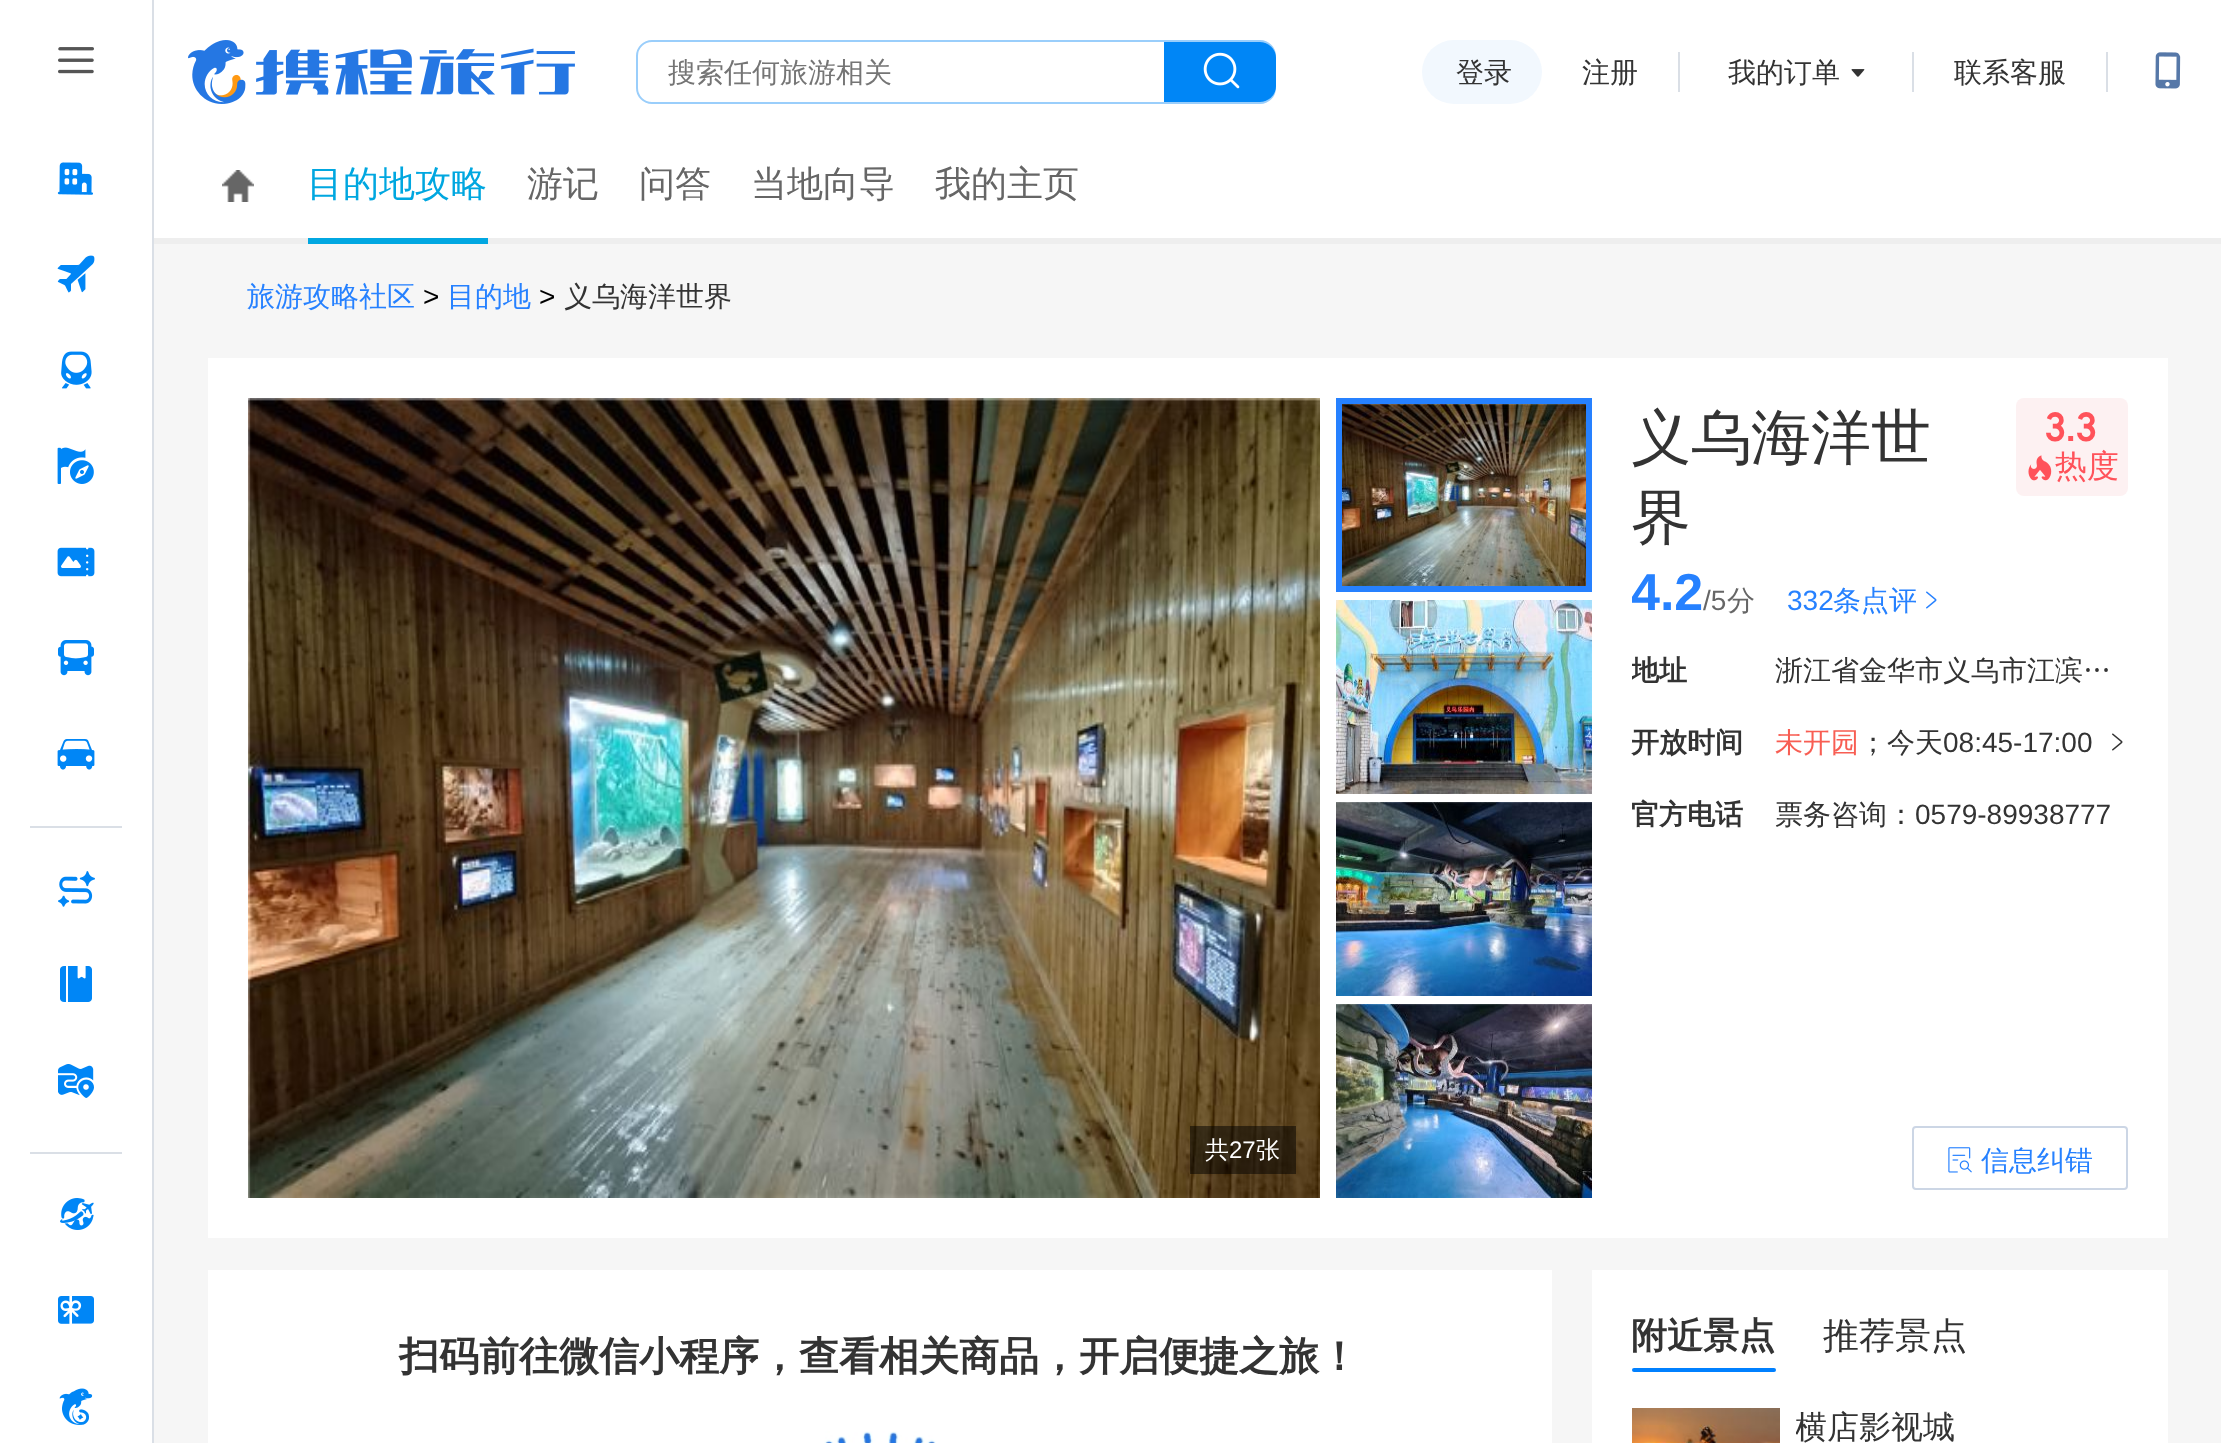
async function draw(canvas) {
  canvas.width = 2221
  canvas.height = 1443
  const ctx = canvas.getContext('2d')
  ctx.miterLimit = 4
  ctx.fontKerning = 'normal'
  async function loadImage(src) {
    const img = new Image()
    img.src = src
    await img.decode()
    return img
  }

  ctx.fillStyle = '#fff'
  ctx.fillRect(0, 0, 2221, 1443)
  ctx.fillStyle = '#eee'
  ctx.fillRect(152, 238, 2069, 6)
  ctx.fillStyle = '#dadfe6'
  ctx.fillRect(152, 0, 2, 1443)
  ctx.drawImage(await loadImage('image0.png'), 58, 47, 36, 27)
  ctx.drawImage(await loadImage('image1.png'), 57, 162, 36, 33)
  ctx.drawImage(await loadImage('image2.png'), 57, 255, 38, 38)
  ctx.drawImage(await loadImage('image3.png'), 61, 351, 31, 38)
  ctx.drawImage(await loadImage('image4.png'), 57, 447, 37, 37)
  ctx.drawImage(await loadImage('image5.png'), 57, 547, 38, 30)
  ctx.drawImage(await loadImage('image6.png'), 58, 640, 36, 36)
  ctx.drawImage(await loadImage('image7.png'), 57, 739, 38, 31)
  ctx.fillRect(30, 826, 92, 2)
  ctx.drawImage(await loadImage('image8.png'), 58, 871, 37, 36)
  ctx.drawImage(await loadImage('image9.png'), 60, 966, 32, 36)
  ctx.drawImage(await loadImage('image10.png'), 58, 1064, 36, 34)
  ctx.fillRect(30, 1152, 92, 2)
  ctx.drawImage(await loadImage('image11.png'), 60, 1198, 34, 32)
  ctx.drawImage(await loadImage('image12.png'), 58, 1296, 36, 28)
  ctx.drawImage(await loadImage('image13.png'), 59, 1388, 34, 37)
  ctx.drawImage(await loadImage('image14.png'), 188, 40, 387, 64)
  ctx.beginPath()
  ctx.roundRect(637, 41, 638, 62, 15)
  ctx.strokeStyle = '#9acefb'
  ctx.lineWidth = 2
  ctx.stroke()
  ctx.font = '500 28px WenQuanYi Zen Hei'
  ctx.fillStyle = '#757575'
  ctx.fillText('搜索任何旅游相关', 668, 82)
  ctx.fillStyle = '#0086f6'
  ctx.beginPath()
  ctx.roundRect(1164, 42, 112, 60, [0, 16, 16, 0])
  ctx.fill()
  ctx.drawImage(await loadImage('image15.png'), 1203, 52, 37, 37)
  ctx.fillStyle = '#f2f8fe'
  ctx.beginPath()
  ctx.roundRect(1422, 40, 120, 64, 32)
  ctx.fill()
  ctx.fillStyle = '#333'
  ctx.fillText('登录', 1456, 82)
  ctx.fillText('注册', 1582, 82)
  ctx.fillStyle = '#dadfe6'
  ctx.fillRect(1678, 52, 2, 40)
  ctx.fillStyle = '#333'
  ctx.fillText('我的订单', 1728, 82)
  ctx.drawImage(await loadImage('image16.png'), 1851, 69, 14, 8)
  ctx.fillStyle = '#dadfe6'
  ctx.fillRect(1912, 52, 2, 40)
  ctx.fillStyle = '#333'
  ctx.fillText('联系客服', 1954, 82)
  ctx.fillStyle = '#dadfe6'
  ctx.fillRect(2106, 52, 2, 40)
  ctx.drawImage(await loadImage('image17.png'), 2155, 52, 26, 37)
  ctx.drawImage(await loadImage('image18.png'), 222, 170, 32, 32)
  ctx.fillStyle = '#01a7e1'
  ctx.fillRect(308, 238, 180, 6)
  ctx.font = '500 36px WenQuanYi Zen Hei'
  ctx.fillStyle = '#00a7e0'
  ctx.fillText('目的地攻略', 307, 196)
  ctx.fillStyle = '#666'
  ctx.fillText('游记', 527, 196)
  ctx.fillText('问答', 639, 196)
  ctx.fillText('当地向导', 751, 196)
  ctx.fillText('我的主页', 935, 196)
  ctx.fillStyle = '#f6f6f6'
  ctx.fillRect(154, 244, 2067, 1199)
  ctx.font = '500 28px WenQuanYi Zen Hei'
  ctx.fillStyle = '#2681ff'
  ctx.fillText('旅游攻略社区', 247, 306)
  ctx.font = '28px Liberation Sans'
  ctx.fillStyle = '#000'
  ctx.fillText('>', 423, 306)
  ctx.font = '500 28px WenQuanYi Zen Hei'
  ctx.fillStyle = '#2681ff'
  ctx.fillText('目的地', 447, 306)
  ctx.font = '28px Liberation Sans'
  ctx.fillStyle = '#000'
  ctx.fillText('>', 539, 306)
  ctx.font = '500 28px WenQuanYi Zen Hei'
  ctx.fillStyle = '#333'
  ctx.fillText('义乌海洋世界', 564, 306)
  ctx.fillStyle = '#fff'
  ctx.fillRect(208, 358, 1960, 880)
  ctx.font = '500 60px WenQuanYi Zen Hei'
  ctx.fillStyle = '#333'
  ctx.fillText('义乌海洋世', 1631, 458)
  ctx.fillText('界', 1631, 538)
  ctx.fillStyle = '#fdf1f2'
  ctx.beginPath()
  ctx.roundRect(2016, 398, 112, 98, 8)
  ctx.fill()
  ctx.font = 'bold 40px "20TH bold"'
  ctx.fillStyle = '#ff525a'
  ctx.fillText('3.3', 2044, 441)
  ctx.drawImage(await loadImage('image19.png'), 2028, 455, 24, 26)
  ctx.font = '500 32px WenQuanYi Zen Hei'
  ctx.fillText('热度', 2055, 477)
  ctx.save()
  ctx.beginPath()
  ctx.rect(1632, 398, 496, 800)
  ctx.clip()
  ctx.font = 'bold 52px Liberation Sans'
  ctx.fillStyle = '#2681ff'
  ctx.fillText('4.2', 1631, 610)
  ctx.restore()
  ctx.font = '28px Liberation Sans'
  ctx.fillStyle = '#666'
  ctx.fillText('/5', 1703, 610)
  ctx.font = '500 28px WenQuanYi Zen Hei'
  ctx.fillText('分', 1727, 610)
  ctx.font = '28px Liberation Sans'
  ctx.fillStyle = '#2681ff'
  ctx.fillText('332', 1787, 610)
  ctx.font = '500 28px WenQuanYi Zen Hei'
  ctx.fillText('条点评', 1833, 610)
  ctx.drawImage(await loadImage('image20.png'), 1926, 591, 11, 18)
  ctx.save()
  ctx.beginPath()
  ctx.rect(1632, 398, 496, 800)
  ctx.clip()
  ctx.font = 'bold 28px WenQuanYi Zen Hei'
  ctx.fillStyle = '#333'
  ctx.fillText('地址', 1631, 680)
  ctx.restore()
  ctx.fillStyle = '#333'
  ctx.fillText('浙江省金华市义乌市江滨…', 1775, 680)
  ctx.font = 'bold 28px WenQuanYi Zen Hei'
  ctx.fillText('开放时间', 1631, 752)
  ctx.font = '500 28px WenQuanYi Zen Hei'
  ctx.fillStyle = '#f85e53'
  ctx.fillText('未开园', 1775, 752)
  ctx.fillStyle = '#333'
  ctx.fillText('；今天', 1859, 752)
  ctx.font = '28px Liberation Sans'
  ctx.fillText('08:45-17:00', 1943, 752)
  ctx.drawImage(await loadImage('image21.png'), 2112, 733, 11, 18)
  ctx.font = 'bold 28px WenQuanYi Zen Hei'
  ctx.fillText('官方电话', 1631, 824)
  ctx.font = '500 28px WenQuanYi Zen Hei'
  ctx.fillText('票务咨询：', 1775, 824)
  ctx.font = '28px Liberation Sans'
  ctx.fillText('0579-89938777', 1915, 824)
  ctx.drawImage(await loadImage('image22.png'), 248, 398, 1072, 800)
  ctx.fillStyle = '#00000080'
  ctx.fillRect(1190, 1126, 106, 48)
  ctx.font = '500 24px WenQuanYi Zen Hei'
  ctx.fillStyle = '#fff'
  ctx.fillText('共', 1205, 1158)
  ctx.font = '24px Liberation Sans'
  ctx.fillText('27', 1229, 1158)
  ctx.font = '500 24px WenQuanYi Zen Hei'
  ctx.fillText('张', 1256, 1158)
  ctx.drawImage(await loadImage('image23.png'), 1342, 404, 244, 182)
  ctx.strokeStyle = '#2681ff'
  ctx.lineWidth = 6
  ctx.strokeRect(1339, 401, 250, 188)
  ctx.drawImage(await loadImage('image24.png'), 1336, 600, 256, 194)
  ctx.drawImage(await loadImage('image25.png'), 1336, 802, 256, 194)
  ctx.drawImage(await loadImage('image26.png'), 1336, 1004, 256, 194)
  ctx.beginPath()
  ctx.roundRect(1913, 1127, 214, 62, 3)
  ctx.strokeStyle = '#ccd6e5'
  ctx.lineWidth = 2
  ctx.stroke()
  ctx.drawImage(await loadImage('image27.png'), 1948, 1147, 24, 26)
  ctx.font = '500 28px WenQuanYi Zen Hei'
  ctx.fillStyle = '#2681ff'
  ctx.fillText('信息纠错', 1981, 1170)
  ctx.fillStyle = '#fff'
  ctx.fillRect(208, 1270, 1344, 173)
  ctx.font = 'bold 40px WenQuanYi Zen Hei'
  ctx.fillStyle = '#333'
  ctx.fillText('扫码前往微信小程序，查看相关商品，开启便捷之旅！', 399, 1370)
  ctx.drawImage(await loadImage('image28.png'), 824, 1431, 112, 12)
  ctx.fillStyle = '#fff'
  ctx.fillRect(1592, 1270, 576, 173)
  ctx.font = 'bold 36px WenQuanYi Zen Hei'
  ctx.fillStyle = '#333'
  ctx.fillText('附近景点', 1631, 1348)
  ctx.fillStyle = '#0080ff'
  ctx.beginPath()
  ctx.roundRect(1632, 1368, 144, 4, 2)
  ctx.fill()
  ctx.font = '500 36px WenQuanYi Zen Hei'
  ctx.fillStyle = '#333'
  ctx.fillText('推荐景点', 1823, 1348)
  ctx.drawImage(await loadImage('image29.png'), 1632, 1408, 148, 35)
  ctx.save()
  ctx.beginPath()
  ctx.rect(1796, 1408, 332, 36)
  ctx.clip()
  ctx.font = '500 32px WenQuanYi Zen Hei'
  ctx.fillText('横店影视城', 1795, 1438)
  ctx.restore()
}

draw(document.querySelector('canvas'))
